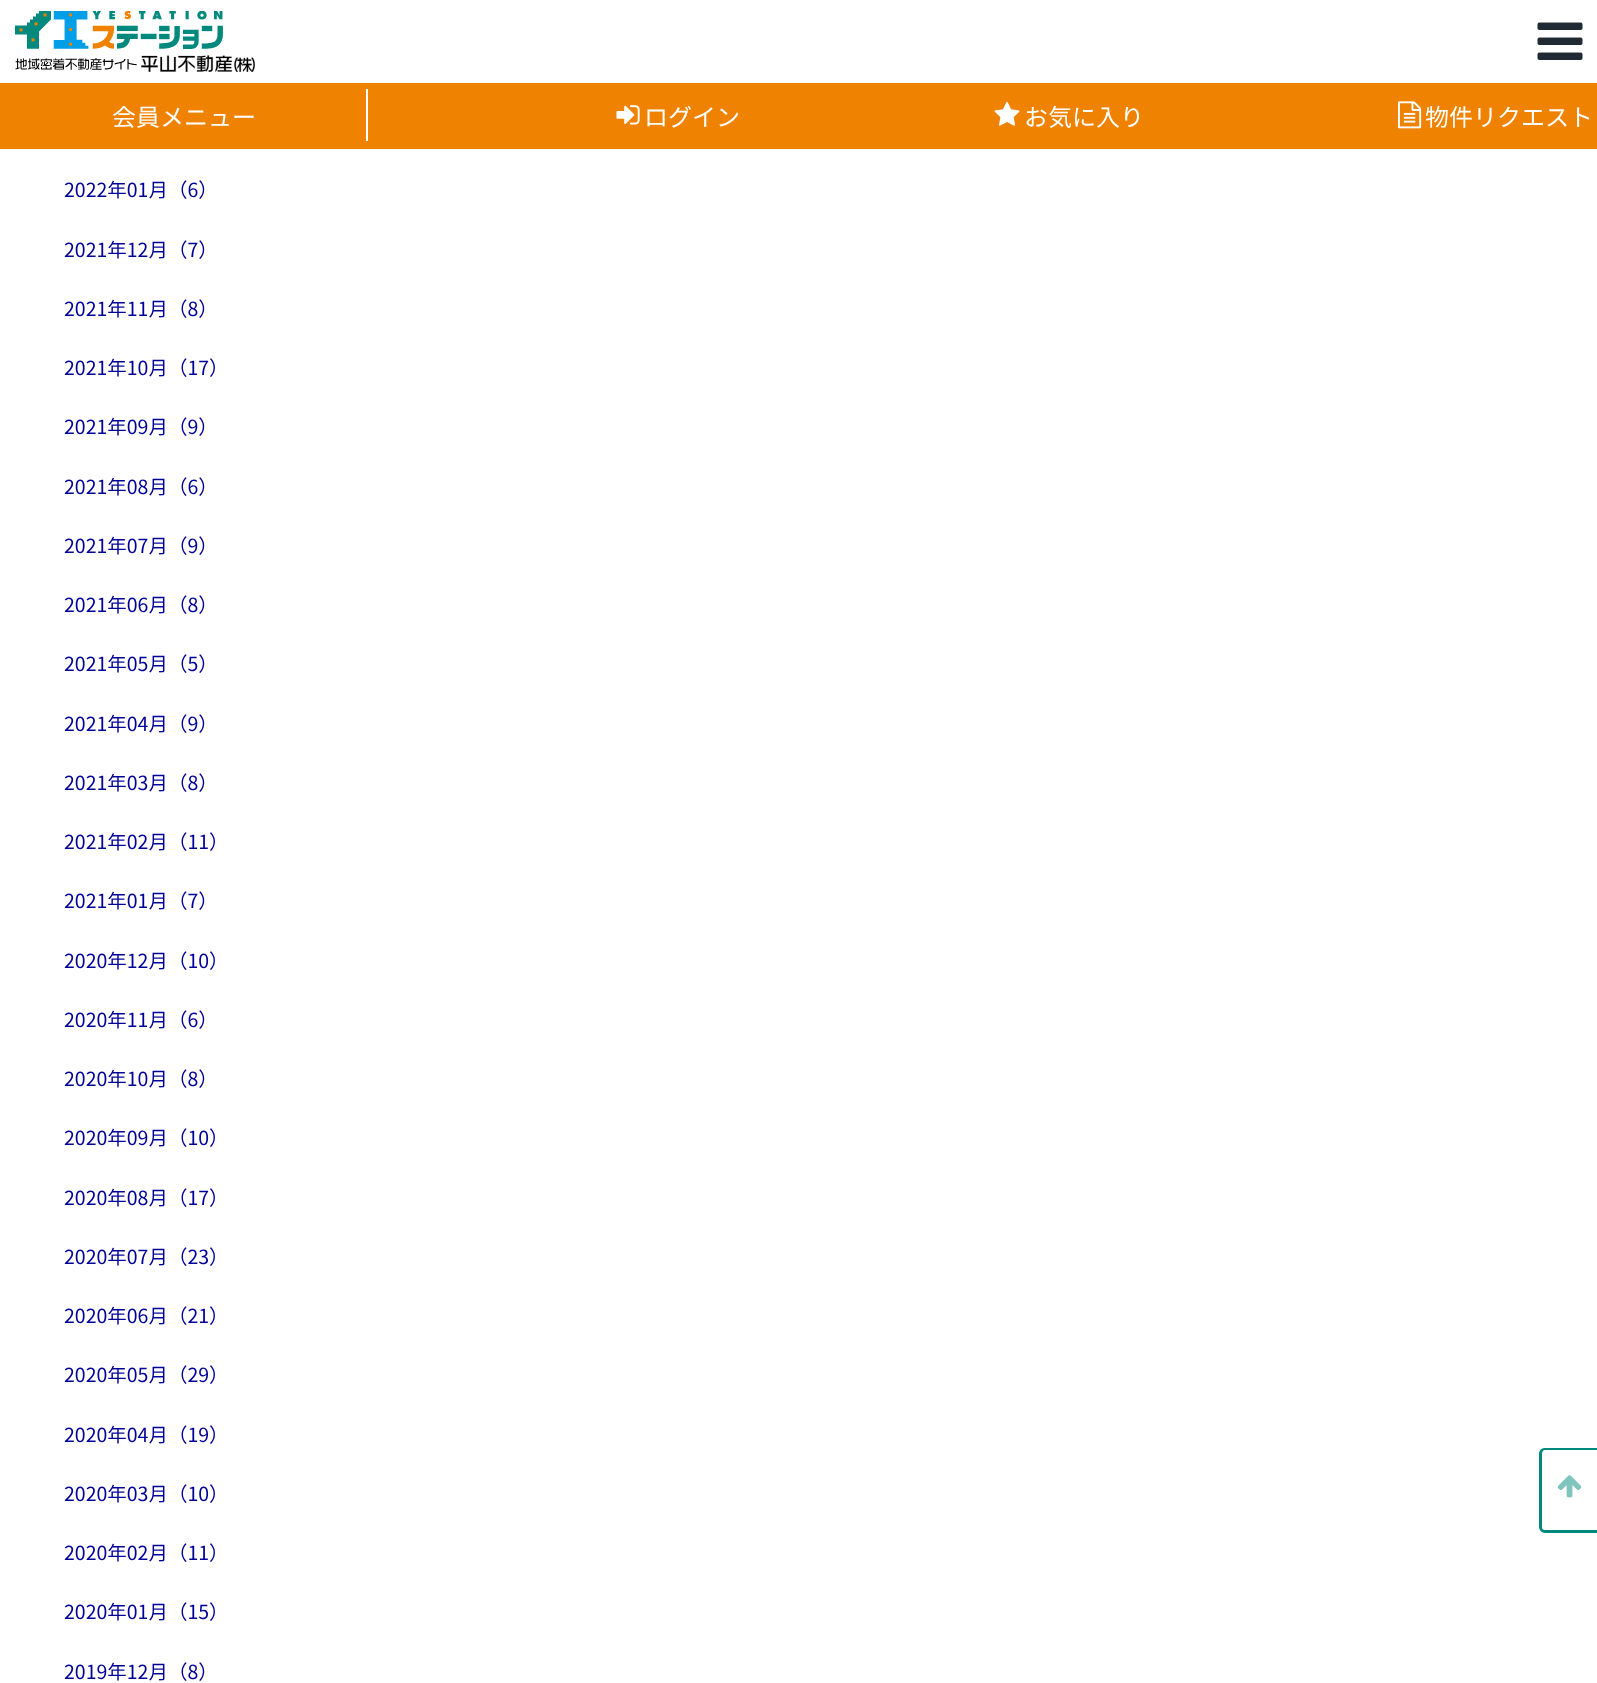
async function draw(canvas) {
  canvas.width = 1597
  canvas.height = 1683
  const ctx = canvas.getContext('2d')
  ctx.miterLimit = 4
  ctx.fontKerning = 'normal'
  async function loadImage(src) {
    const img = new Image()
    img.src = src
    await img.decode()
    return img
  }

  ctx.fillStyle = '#fff'
  ctx.fillRect(0, 0, 1597, 1683)
  ctx.drawImage(await loadImage('image0.png'), 15, 11, 240, 61)
  ctx.drawImage(await loadImage('image1.png'), 1537, 22, 46, 38)
  ctx.fillStyle = '#ef8200'
  ctx.fillRect(0, 83, 1597, 66)
  ctx.font = '24px Noto Sans JP'
  ctx.fillStyle = '#fff'
  ctx.fillText('会員メニュー', 112, 126)
  ctx.fillRect(366, 89, 2, 52)
  ctx.drawImage(await loadImage('image2.png'), 616, 105, 24, 20)
  ctx.fillText('ログイン', 644, 126)
  ctx.drawImage(await loadImage('image3.png'), 994, 101, 26, 25)
  ctx.fillText('お気に入り', 1024, 126)
  ctx.drawImage(await loadImage('image4.png'), 1398, 101, 24, 28)
  ctx.fillText('物件リクエスト', 1425, 126)
  ctx.font = '19.5px Noto Sans JP'
  ctx.fillStyle = '#009'
  ctx.fillText('2022年01月（6）', 64, 197)
  ctx.fillText('2021年12月（7）', 64, 257)
  ctx.fillText('2021年11月（8）', 64, 316)
  ctx.fillText('2021年10月（17）', 64, 375)
  ctx.fillText('2021年09月（9）', 64, 434)
  ctx.fillText('2021年08月（6）', 64, 494)
  ctx.fillText('2021年07月（9）', 64, 553)
  ctx.fillText('2021年06月（8）', 64, 612)
  ctx.fillText('2021年05月（5）', 64, 671)
  ctx.fillText('2021年04月（9）', 64, 731)
  ctx.fillText('2021年03月（8）', 64, 790)
  ctx.fillText('2021年02月（11）', 64, 849)
  ctx.fillText('2021年01月（7）', 64, 908)
  ctx.fillText('2020年12月（10）', 64, 968)
  ctx.fillText('2020年11月（6）', 64, 1027)
  ctx.fillText('2020年10月（8）', 64, 1086)
  ctx.fillText('2020年09月（10）', 64, 1145)
  ctx.fillText('2020年08月（17）', 64, 1205)
  ctx.fillText('2020年07月（23）', 64, 1264)
  ctx.fillText('2020年06月（21）', 64, 1323)
  ctx.fillText('2020年05月（29）', 64, 1382)
  ctx.fillText('2020年04月（19）', 64, 1442)
  ctx.fillText('2020年03月（10）', 64, 1501)
  ctx.fillText('2020年02月（11）', 64, 1560)
  ctx.fillText('2020年01月（15）', 64, 1619)
  ctx.fillText('2019年12月（8）', 64, 1679)
  ctx.fillStyle = '#00897c'
  ctx.beginPath()
  ctx.moveTo(1545, 1448)
  ctx.lineTo(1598, 1448)
  ctx.lineTo(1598, 1533)
  ctx.lineTo(1545, 1533)
  ctx.bezierCurveTo(1542, 1533, 1539, 1530, 1539, 1527)
  ctx.lineTo(1539, 1454)
  ctx.bezierCurveTo(1539, 1450, 1542, 1448, 1545, 1448)
  ctx.closePath()
  ctx.moveTo(1545, 1450)
  ctx.lineTo(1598, 1450)
  ctx.lineTo(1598, 1530)
  ctx.lineTo(1545, 1530)
  ctx.bezierCurveTo(1543, 1530, 1542, 1529, 1542, 1527)
  ctx.lineTo(1542, 1454)
  ctx.bezierCurveTo(1542, 1452, 1543, 1450, 1545, 1450)
  ctx.closePath()
  ctx.fill('evenodd')
  ctx.drawImage(await loadImage('image5.png'), 1557, 1475, 25, 23)
}

draw(document.querySelector('canvas'))
